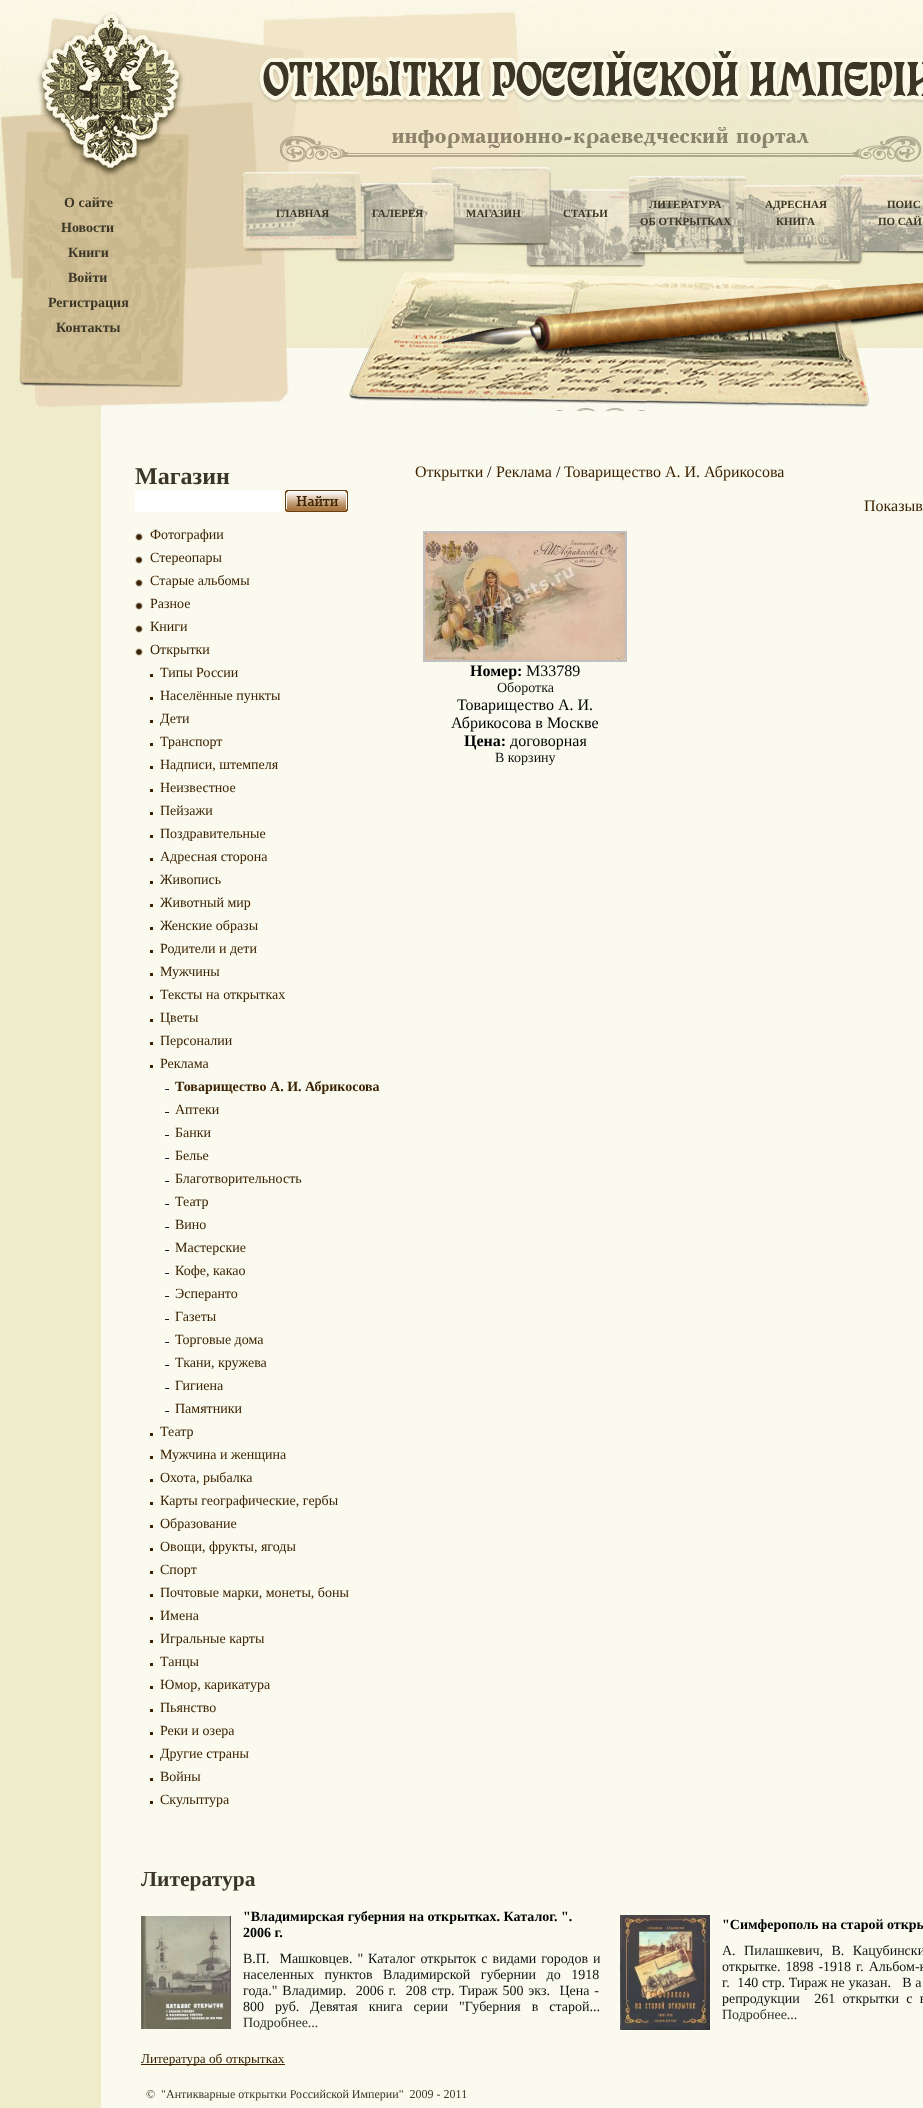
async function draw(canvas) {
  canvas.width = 923
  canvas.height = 2108
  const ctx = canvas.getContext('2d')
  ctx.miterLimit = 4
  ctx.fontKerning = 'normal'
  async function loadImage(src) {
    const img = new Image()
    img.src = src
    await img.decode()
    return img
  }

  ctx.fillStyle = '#efecca'
  ctx.fillRect(0, 0, 923, 2108)
  ctx.drawImage(await loadImage('image0.png'), 0, 0, 923, 441)
  ctx.font = 'bold 14px Liberation Serif'
  ctx.fillStyle = '#3b3626'
  ctx.fillText('О сайте', 64, 207)
  ctx.fillText('Новости', 61, 232)
  ctx.fillText('Книги', 68, 257)
  ctx.fillText('Войти', 68, 282)
  ctx.fillText('Регистрация', 48, 307)
  ctx.fillText('Контакты', 56, 332)
  ctx.font = 'bold 11px Liberation Serif'
  ctx.fillText('ГЛАВНАЯ', 276, 217)
  ctx.fillText('ГАЛЕРЕЯ', 372, 217)
  ctx.fillText('МАГАЗИН', 466, 217)
  ctx.fillText('СТАТЬИ', 563, 217)
  ctx.fillText('ЛИТЕРАТУРА', 649, 208)
  ctx.fillText('ОБ ОТКРЫТКАХ', 640, 225)
  ctx.fillText('АДРЕСНАЯ', 765, 208)
  ctx.fillText('КНИГА', 776, 225)
  ctx.fillText('ПОИС', 887, 208)
  ctx.fillText('ПО САЙ', 878, 225)
  ctx.fillStyle = '#fafaef'
  ctx.fillRect(101, 411, 822, 1697)
  ctx.font = 'bold 24px Liberation Serif'
  ctx.fillStyle = '#3b3626'
  ctx.fillText('Магазин', 135, 484)
  ctx.fillStyle = '#fff'
  ctx.fillRect(135, 490, 146, 22)
  ctx.drawImage(await loadImage('image1.png'), 285, 490, 63, 22)
  ctx.drawImage(await loadImage('image2.png'), 135, 533, 8, 8)
  ctx.font = '14px Liberation Serif'
  ctx.fillStyle = '#3c2201'
  ctx.fillText('Фотографии', 150, 539)
  ctx.drawImage(await loadImage('image2.png'), 135, 556, 8, 8)
  ctx.fillText('Стереопары', 150, 562)
  ctx.drawImage(await loadImage('image2.png'), 135, 579, 8, 8)
  ctx.fillText('Старые альбомы', 150, 585)
  ctx.drawImage(await loadImage('image2.png'), 135, 602, 8, 8)
  ctx.fillText('Разное', 150, 608)
  ctx.drawImage(await loadImage('image2.png'), 135, 625, 8, 8)
  ctx.fillText('Книги', 150, 631)
  ctx.drawImage(await loadImage('image2.png'), 135, 648, 8, 8)
  ctx.fillText('Открытки', 150, 654)
  ctx.fillRect(150, 674, 3, 3)
  ctx.fillText('Типы России', 160, 677)
  ctx.fillRect(150, 697, 3, 3)
  ctx.fillText('Населённые пункты', 160, 700)
  ctx.fillRect(150, 720, 3, 3)
  ctx.fillText('Дети', 160, 723)
  ctx.fillRect(150, 743, 3, 3)
  ctx.fillText('Транспорт', 160, 746)
  ctx.fillRect(150, 766, 3, 3)
  ctx.fillText('Надписи, штемпеля', 160, 769)
  ctx.fillRect(150, 789, 3, 3)
  ctx.fillText('Неизвестное', 160, 792)
  ctx.fillRect(150, 812, 3, 3)
  ctx.fillText('Пейзажи', 160, 815)
  ctx.fillRect(150, 835, 3, 3)
  ctx.fillText('Поздравительные', 160, 838)
  ctx.fillRect(150, 858, 3, 3)
  ctx.fillText('Адресная сторона', 160, 861)
  ctx.fillRect(150, 881, 3, 3)
  ctx.fillText('Живопись', 160, 884)
  ctx.fillRect(150, 904, 3, 3)
  ctx.fillText('Животный мир', 160, 907)
  ctx.fillRect(150, 927, 3, 3)
  ctx.fillText('Женские образы', 160, 930)
  ctx.fillRect(150, 950, 3, 3)
  ctx.fillText('Родители и дети', 160, 953)
  ctx.fillRect(150, 973, 3, 3)
  ctx.fillText('Мужчины', 160, 976)
  ctx.fillRect(150, 996, 3, 3)
  ctx.fillText('Тексты на открытках', 160, 999)
  ctx.fillRect(150, 1019, 3, 3)
  ctx.fillText('Цветы', 160, 1022)
  ctx.fillRect(150, 1042, 3, 3)
  ctx.fillText('Персоналии', 160, 1045)
  ctx.fillRect(150, 1065, 3, 3)
  ctx.fillText('Реклама', 160, 1068)
  ctx.drawImage(await loadImage('image3.png'), 165, 1088, 4, 3)
  ctx.font = 'bold 14px Liberation Serif'
  ctx.fillText('Товарищество А. И. Абрикосова', 175, 1091)
  ctx.drawImage(await loadImage('image3.png'), 165, 1111, 4, 3)
  ctx.font = '14px Liberation Serif'
  ctx.fillText('Аптеки', 175, 1114)
  ctx.drawImage(await loadImage('image3.png'), 165, 1134, 4, 3)
  ctx.fillText('Банки', 175, 1137)
  ctx.drawImage(await loadImage('image3.png'), 165, 1157, 4, 3)
  ctx.fillText('Белье', 175, 1160)
  ctx.drawImage(await loadImage('image3.png'), 165, 1180, 4, 3)
  ctx.fillText('Благотворительность', 175, 1183)
  ctx.drawImage(await loadImage('image3.png'), 165, 1203, 4, 3)
  ctx.fillText('Театр', 175, 1206)
  ctx.drawImage(await loadImage('image3.png'), 165, 1226, 4, 3)
  ctx.fillText('Вино', 175, 1229)
  ctx.drawImage(await loadImage('image3.png'), 165, 1249, 4, 3)
  ctx.fillText('Мастерские', 175, 1252)
  ctx.drawImage(await loadImage('image3.png'), 165, 1272, 4, 3)
  ctx.fillText('Кофе, какао', 175, 1275)
  ctx.drawImage(await loadImage('image3.png'), 165, 1295, 4, 3)
  ctx.fillText('Эсперанто', 175, 1298)
  ctx.drawImage(await loadImage('image3.png'), 165, 1318, 4, 3)
  ctx.fillText('Газеты', 175, 1321)
  ctx.drawImage(await loadImage('image3.png'), 165, 1341, 4, 3)
  ctx.fillText('Торговые дома', 175, 1344)
  ctx.drawImage(await loadImage('image3.png'), 165, 1364, 4, 3)
  ctx.fillText('Ткани, кружева', 175, 1367)
  ctx.drawImage(await loadImage('image3.png'), 165, 1387, 4, 3)
  ctx.fillText('Гигиена', 175, 1390)
  ctx.drawImage(await loadImage('image3.png'), 165, 1410, 4, 3)
  ctx.fillText('Памятники', 175, 1413)
  ctx.fillRect(150, 1433, 3, 3)
  ctx.fillText('Театр', 160, 1436)
  ctx.fillRect(150, 1456, 3, 3)
  ctx.fillText('Мужчина и женщина', 160, 1459)
  ctx.fillRect(150, 1479, 3, 3)
  ctx.fillText('Охота, рыбалка', 160, 1482)
  ctx.fillRect(150, 1502, 3, 3)
  ctx.fillText('Карты географические, гербы', 160, 1505)
  ctx.fillRect(150, 1525, 3, 3)
  ctx.fillText('Образование', 160, 1528)
  ctx.fillRect(150, 1548, 3, 3)
  ctx.fillText('Овощи, фрукты, ягоды', 160, 1551)
  ctx.fillRect(150, 1571, 3, 3)
  ctx.fillText('Спорт', 160, 1574)
  ctx.fillRect(150, 1594, 3, 3)
  ctx.fillText('Почтовые марки, монеты, боны', 160, 1597)
  ctx.fillRect(150, 1617, 3, 3)
  ctx.fillText('Имена', 160, 1620)
  ctx.fillRect(150, 1640, 3, 3)
  ctx.fillText('Игральные карты', 160, 1643)
  ctx.fillRect(150, 1663, 3, 3)
  ctx.fillText('Танцы', 160, 1666)
  ctx.fillRect(150, 1686, 3, 3)
  ctx.fillText('Юмор, карикатура', 160, 1689)
  ctx.fillRect(150, 1709, 3, 3)
  ctx.fillText('Пьянство', 160, 1712)
  ctx.fillRect(150, 1732, 3, 3)
  ctx.fillText('Реки и озера', 160, 1735)
  ctx.fillRect(150, 1755, 3, 3)
  ctx.fillText('Другие страны', 160, 1758)
  ctx.fillRect(150, 1778, 3, 3)
  ctx.fillText('Войны', 160, 1781)
  ctx.fillRect(150, 1801, 3, 3)
  ctx.fillText('Скульптура', 160, 1804)
  ctx.font = '16px Liberation Serif'
  ctx.fillText('Открытки', 415, 477)
  ctx.fillStyle = '#000'
  ctx.fillText('/', 487, 477)
  ctx.fillStyle = '#3c2201'
  ctx.fillText('Реклама', 496, 477)
  ctx.fillStyle = '#000'
  ctx.fillText('/', 556, 477)
  ctx.fillStyle = '#3c2201'
  ctx.fillText('Товарищество А. И. Абрикосова', 564, 477)
  ctx.fillText('Показыв', 864, 511)
  ctx.strokeStyle = '#c0c0c0'
  ctx.lineWidth = 2
  ctx.strokeRect(424, 532, 202, 129)
  ctx.drawImage(await loadImage('image4.png'), 425, 533, 200, 127)
  ctx.font = 'bold 16px Liberation Serif'
  ctx.fillStyle = '#000'
  ctx.fillText('Номер:', 470, 676)
  ctx.font = '16px Liberation Serif'
  ctx.fillText('M33789', 526, 676)
  ctx.font = '14px Liberation Serif'
  ctx.fillStyle = '#121212'
  ctx.fillText('Оборотка', 497, 692)
  ctx.font = '16px Liberation Serif'
  ctx.fillStyle = '#000'
  ctx.fillText('Товарищество А. И.', 457, 710)
  ctx.fillText('Абрикосова в Москве', 451, 728)
  ctx.font = 'bold 16px Liberation Serif'
  ctx.fillText('Цена:', 464, 746)
  ctx.font = '16px Liberation Serif'
  ctx.fillText('договорная', 510, 746)
  ctx.font = '14px Liberation Serif'
  ctx.fillStyle = '#121212'
  ctx.fillText('В корзину', 495, 762)
  ctx.font = 'bold 21.5px Liberation Serif'
  ctx.fillStyle = '#3b3626'
  ctx.fillText('Литература', 141, 1886)
  ctx.drawImage(await loadImage('image5.png'), 141, 1916, 90, 113)
  ctx.font = 'bold 14px Liberation Serif'
  ctx.fillStyle = '#000'
  ctx.fillText('"Владимирская губерния на открытках. Каталог. ".', 243, 1921)
  ctx.fillText('2006 г.', 243, 1937)
  ctx.wordSpacing = '1.5px'
  ctx.font = '14px Liberation Serif'
  ctx.fillStyle = '#121212'
  ctx.fillText('В.П.  Машковцев. " Каталог открыток с видами городов и', 243, 1963)
  ctx.wordSpacing = '7px'
  ctx.fillText('населенных пунктов Владимирской губернии до 1918', 243, 1979)
  ctx.wordSpacing = '1.25px'
  ctx.fillText('года." Владимир.  2006 г.  208 стр. Тираж 500 экз.  Цена -', 243, 1995)
  ctx.wordSpacing = '7.5px'
  ctx.fillText('800 руб.', 243, 2011)
  ctx.fillText('Девятая книга серии "Губерния в старой...', 310, 2011)
  ctx.wordSpacing = '0px'
  ctx.fillStyle = '#31312f'
  ctx.fillText('Подробнее...', 243, 2027)
  ctx.drawImage(await loadImage('image6.png'), 620, 1915, 90, 115)
  ctx.font = 'bold 14px Liberation Serif'
  ctx.fillStyle = '#000'
  ctx.fillText('"Симферополь на старой откры', 722, 1929)
  ctx.wordSpacing = '5px'
  ctx.font = '14px Liberation Serif'
  ctx.fillStyle = '#121212'
  ctx.fillText('А. Пилашкевич, В. Кацубински', 722, 1955)
  ctx.wordSpacing = '1.5px'
  ctx.fillText('открытке. 1898 -1918 г. Альбом-к', 722, 1971)
  ctx.wordSpacing = '0.25px'
  ctx.fillText('г.  140 стр. Тираж не указан.   В а', 722, 1987)
  ctx.wordSpacing = '3.75px'
  ctx.fillText('репродукции  261 открытки с в', 722, 2003)
  ctx.wordSpacing = '0px'
  ctx.fillStyle = '#31312f'
  ctx.fillText('Подробнее...', 722, 2019)
  ctx.fillStyle = '#3c2201'
  ctx.fillRect(141, 2064, 144, 1)
  ctx.font = '13.25px Liberation Serif'
  ctx.fillText('Литература об открытках', 141, 2063)
  ctx.font = '12px Liberation Serif'
  ctx.fillStyle = '#3b3626'
  ctx.fillText('©  "Антикварные открытки Российской Империи"  2009 - 2011', 146, 2098)
}

draw(document.querySelector('canvas'))
